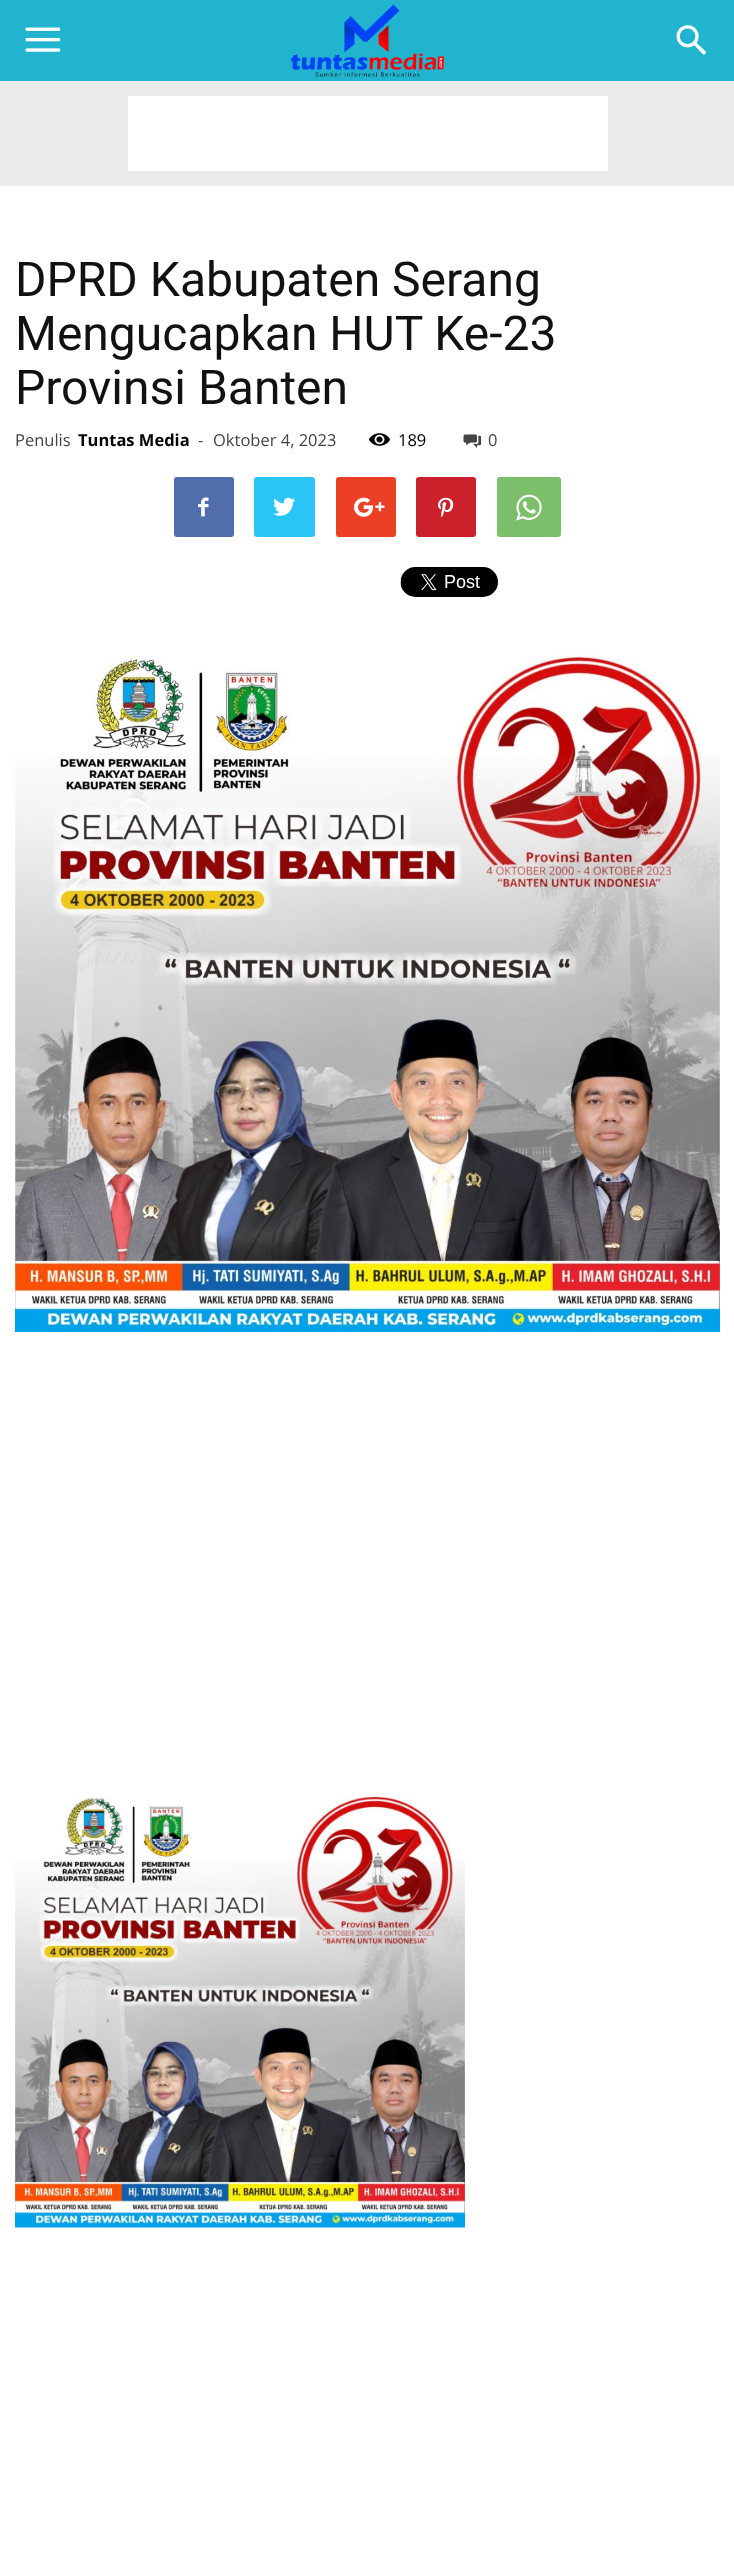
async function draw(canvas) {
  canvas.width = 734
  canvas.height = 2558
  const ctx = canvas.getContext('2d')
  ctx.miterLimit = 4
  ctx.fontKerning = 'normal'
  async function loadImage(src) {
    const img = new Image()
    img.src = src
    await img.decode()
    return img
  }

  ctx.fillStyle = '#fff'
  ctx.fillRect(0, 0, 734, 2558)
  ctx.fillStyle = '#21b4ce'
  ctx.fillRect(0, 0, 734, 81)
  ctx.drawImage(await loadImage('image0.png'), 25, 27, 36, 25)
  ctx.drawImage(await loadImage('image1.png'), 291, 4, 153, 73)
  ctx.drawImage(await loadImage('image2.png'), 676, 25, 30, 30)
  ctx.fillStyle = '#eaeaea'
  ctx.fillRect(0, 81, 734, 105)
  ctx.fillStyle = '#fff'
  ctx.fillRect(128, 96, 480, 75)
  ctx.font = '48px Roboto'
  ctx.fillStyle = '#111'
  ctx.fillText('DPRD Kabupaten Serang', 15, 296)
  ctx.fillText('Mengucapkan HUT Ke-23', 15, 350)
  ctx.fillText('Provinsi Banten', 15, 404)
  ctx.font = '16.5px Open Sans'
  ctx.fillStyle = '#444'
  ctx.fillText('Penulis', 15, 446)
  ctx.font = 'bold 16.5px Open Sans'
  ctx.fillStyle = '#000'
  ctx.fillText('Tuntas Media', 78, 446)
  ctx.font = '16.5px Open Sans'
  ctx.fillStyle = '#444'
  ctx.fillText('-', 198, 446)
  ctx.fillText('Oktober 4, 2023', 213, 446)
  ctx.drawImage(await loadImage('image3.png'), 369, 433, 21, 13)
  ctx.fillStyle = '#000'
  ctx.fillText('189', 398, 446)
  ctx.drawImage(await loadImage('image4.png'), 463, 434, 19, 14)
  ctx.fillStyle = '#444'
  ctx.fillText('0', 488, 446)
  ctx.fillStyle = '#516eab'
  ctx.beginPath()
  ctx.roundRect(174, 477, 60, 60, 3)
  ctx.fill()
  ctx.drawImage(await loadImage('image5.png'), 198, 497, 11, 20)
  ctx.fillStyle = '#29c5f6'
  ctx.beginPath()
  ctx.roundRect(254, 477, 61, 60, 3)
  ctx.fill()
  ctx.drawImage(await loadImage('image6.png'), 273, 497, 22, 19)
  ctx.fillStyle = '#eb4026'
  ctx.beginPath()
  ctx.roundRect(336, 477, 60, 60, 3)
  ctx.fill()
  ctx.drawImage(await loadImage('image7.png'), 354, 497, 31, 20)
  ctx.fillStyle = '#ca212a'
  ctx.beginPath()
  ctx.roundRect(416, 477, 60, 60, 3)
  ctx.fill()
  ctx.drawImage(await loadImage('image8.png'), 438, 497, 16, 21)
  ctx.fillStyle = '#7bbf6a'
  ctx.beginPath()
  ctx.roundRect(497, 477, 64, 60, 3)
  ctx.fill()
  ctx.drawImage(await loadImage('image9.png'), 516, 494, 26, 27)
  ctx.drawImage(await loadImage('image10.png'), 400, 567, 98, 30)
  ctx.drawImage(await loadImage('image11.png'), 15, 650, 705, 682)
  ctx.drawImage(await loadImage('image12.png'), 15, 1792, 450, 436)
}

draw(document.querySelector('canvas'))
